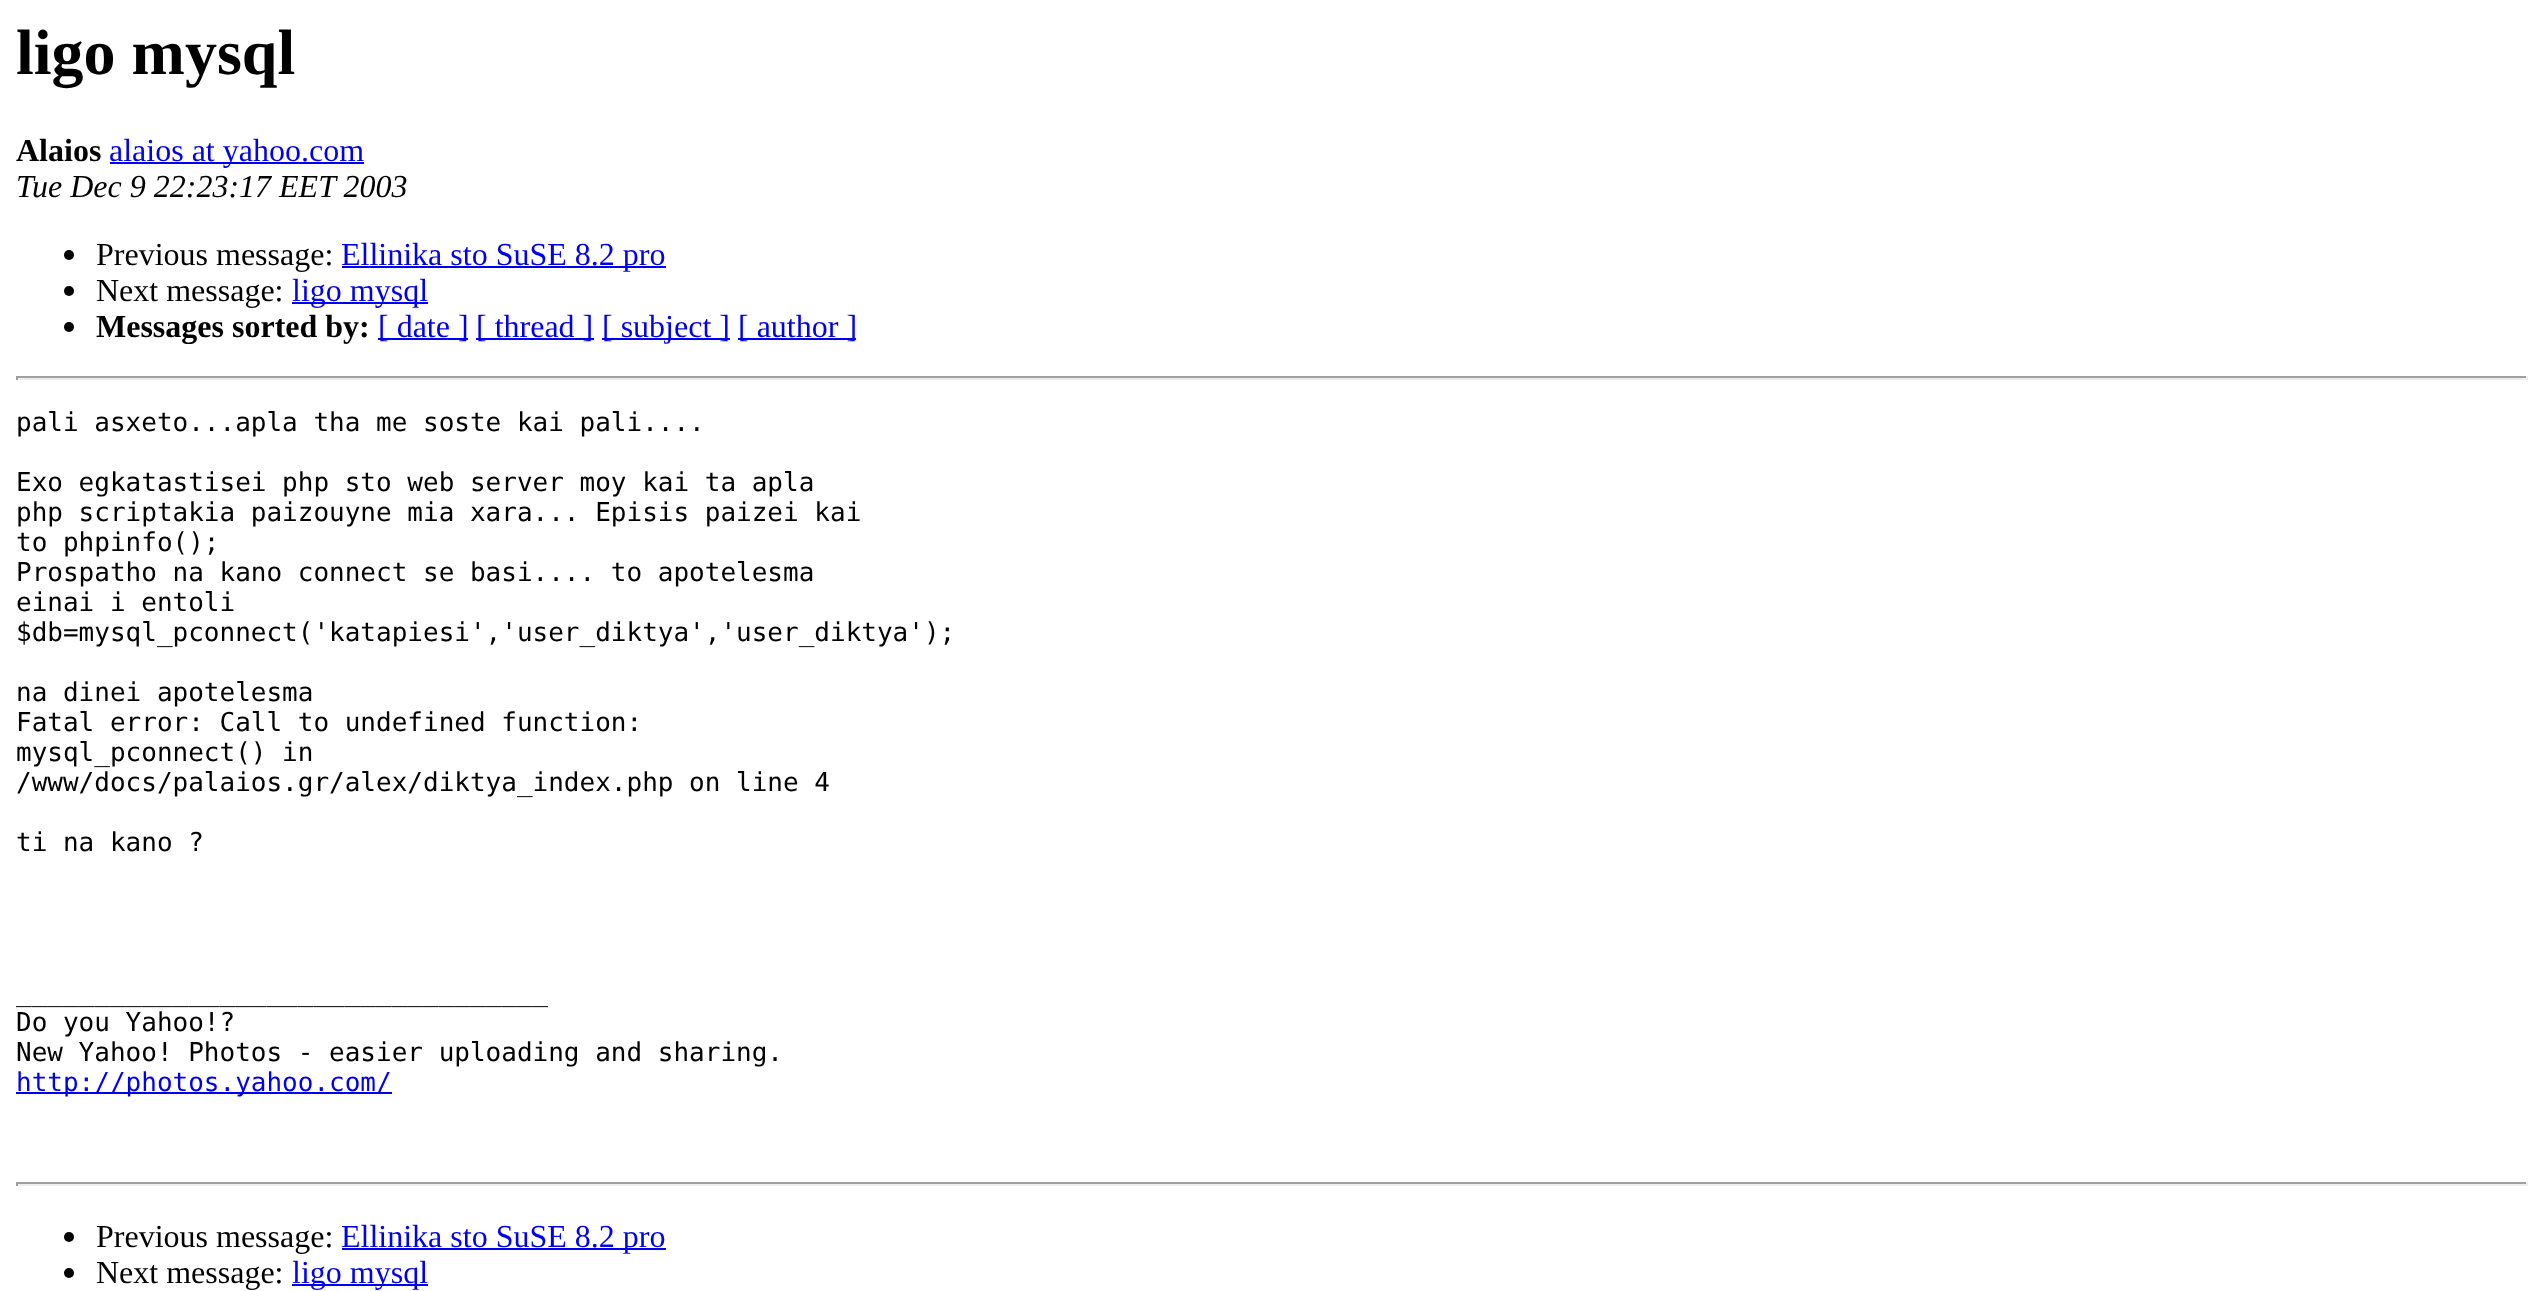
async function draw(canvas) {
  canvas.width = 2543
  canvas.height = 1291
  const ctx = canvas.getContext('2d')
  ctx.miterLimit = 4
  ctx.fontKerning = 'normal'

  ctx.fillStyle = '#fff'
  ctx.fillRect(0, 0, 2543, 1291)
  ctx.font = 'bold 64px Liberation Serif'
  ctx.fillStyle = '#000'
  ctx.fillText('ligo mysql', 16, 74)
  ctx.font = 'bold 32px Liberation Serif'
  ctx.fillText('Alaios', 16, 161)
  ctx.fillStyle = '#00e'
  ctx.fillRect(110, 162, 254, 2)
  ctx.font = '32px Liberation Serif'
  ctx.fillText('alaios at yahoo.com', 109, 161)
  ctx.font = 'italic 32px Liberation Serif'
  ctx.fillStyle = '#000'
  ctx.fillText('Tue Dec 9 22:23:17 EET 2003', 16, 197)
  ctx.beginPath()
  ctx.arc(69, 255, 5, 0, 2 * Math.PI)
  ctx.fill()
  ctx.font = '32px Liberation Serif'
  ctx.fillText('Previous message:', 96, 265)
  ctx.fillStyle = '#00e'
  ctx.fillRect(342, 266, 324, 2)
  ctx.fillText('Ellinika sto SuSE 8.2 pro', 341, 265)
  ctx.fillStyle = '#000'
  ctx.beginPath()
  ctx.arc(69, 291, 5, 0, 2 * Math.PI)
  ctx.fill()
  ctx.fillText('Next message:', 96, 301)
  ctx.fillStyle = '#00e'
  ctx.fillRect(292, 302, 136, 2)
  ctx.fillText('ligo mysql', 292, 301)
  ctx.fillStyle = '#000'
  ctx.beginPath()
  ctx.arc(69, 327, 5, 0, 2 * Math.PI)
  ctx.fill()
  ctx.font = 'bold 32px Liberation Serif'
  ctx.fillText('Messages sorted by:', 96, 337)
  ctx.fillStyle = '#00e'
  ctx.fillRect(378, 338, 90, 2)
  ctx.font = '32px Liberation Serif'
  ctx.fillText('[ date ]', 378, 337)
  ctx.fillRect(476, 338, 118, 2)
  ctx.fillText('[ thread ]', 476, 337)
  ctx.fillRect(602, 338, 128, 2)
  ctx.fillText('[ subject ]', 602, 337)
  ctx.fillRect(738, 338, 118, 2)
  ctx.fillText('[ author ]', 738, 337)
  ctx.fillStyle = '#9f9f9f'
  ctx.fillRect(16, 376, 2512, 2)
  ctx.fillStyle = '#eee'
  ctx.fillRect(2526, 376, 2, 4)
  ctx.fillRect(16, 378, 2512, 2)
  ctx.fillStyle = '#9f9f9f'
  ctx.fillRect(16, 376, 2, 4)
  ctx.font = '26px DejaVu Sans Mono'
  ctx.fillStyle = '#000'
  ctx.fillText('pali asxeto...apla tha me soste kai pali....', 16, 431)
  ctx.fillText('Exo egkatastisei php sto web server moy kai ta apla', 16, 491)
  ctx.fillText('php scriptakia paizouyne mia xara... Episis paizei kai', 16, 521)
  ctx.fillText('to phpinfo();', 16, 551)
  ctx.fillText('Prospatho na kano connect se basi.... to apotelesma', 16, 581)
  ctx.fillText('einai i entoli', 16, 611)
  ctx.fillText('$db=mysql_pconnect(\'katapiesi\',\'user_diktya\',\'user_diktya\');', 16, 641)
  ctx.fillText('na dinei apotelesma', 16, 701)
  ctx.fillText('Fatal error: Call to undefined function:', 16, 731)
  ctx.fillText('mysql_pconnect() in', 16, 761)
  ctx.fillText('/www/docs/palaios.gr/alex/diktya_index.php on line 4', 16, 791)
  ctx.fillText('ti na kano ?', 16, 851)
  ctx.fillText('__________________________________', 16, 1001)
  ctx.fillText('Do you Yahoo!?', 16, 1031)
  ctx.fillText('New Yahoo! Photos - easier uploading and sharing.', 16, 1061)
  ctx.fillStyle = '#00e'
  ctx.fillRect(16, 1092, 376, 2)
  ctx.fillText('http://photos.yahoo.com/', 16, 1091)
  ctx.fillStyle = '#9f9f9f'
  ctx.fillRect(16, 1182, 2512, 2)
  ctx.fillStyle = '#eee'
  ctx.fillRect(2526, 1182, 2, 4)
  ctx.fillRect(16, 1184, 2512, 2)
  ctx.fillStyle = '#9f9f9f'
  ctx.fillRect(16, 1182, 2, 4)
  ctx.fillStyle = '#000'
  ctx.beginPath()
  ctx.arc(69, 1237, 5, 0, 2 * Math.PI)
  ctx.fill()
  ctx.font = '32px Liberation Serif'
  ctx.fillText('Previous message:', 96, 1247)
  ctx.fillStyle = '#00e'
  ctx.fillRect(342, 1248, 324, 2)
  ctx.fillText('Ellinika sto SuSE 8.2 pro', 341, 1247)
  ctx.fillStyle = '#000'
  ctx.beginPath()
  ctx.arc(69, 1273, 5, 0, 2 * Math.PI)
  ctx.fill()
  ctx.fillText('Next message:', 96, 1283)
  ctx.fillStyle = '#00e'
  ctx.fillRect(292, 1284, 136, 2)
  ctx.fillText('ligo mysql', 292, 1283)
}

draw(document.querySelector('canvas'))
